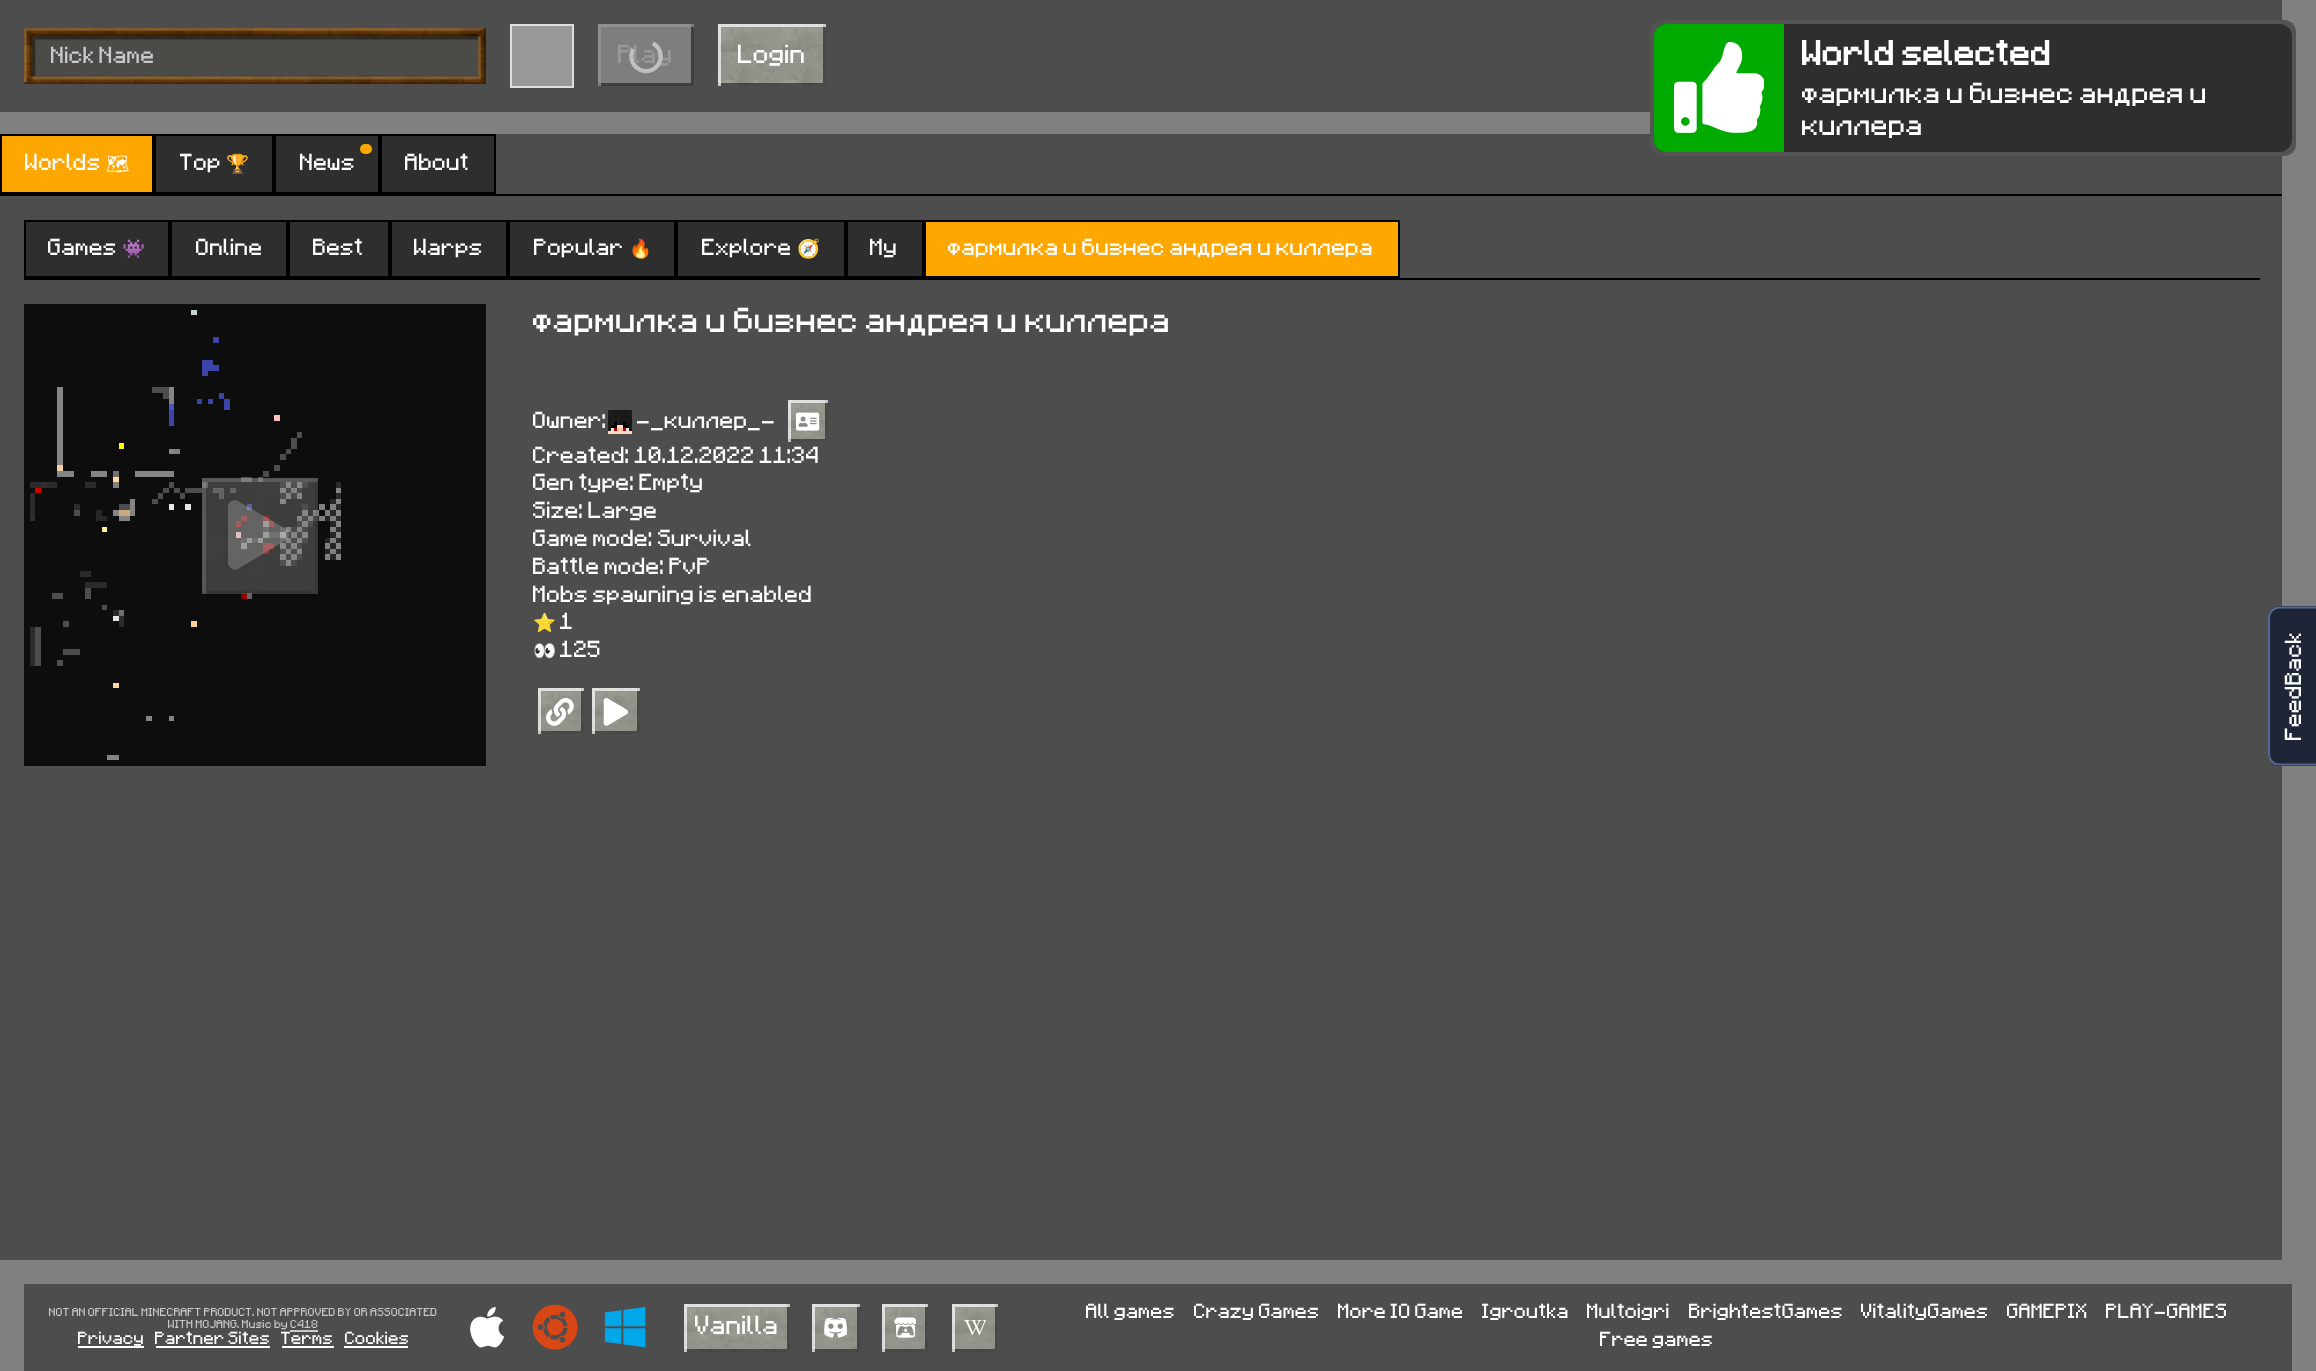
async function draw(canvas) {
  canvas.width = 2316
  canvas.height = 1371
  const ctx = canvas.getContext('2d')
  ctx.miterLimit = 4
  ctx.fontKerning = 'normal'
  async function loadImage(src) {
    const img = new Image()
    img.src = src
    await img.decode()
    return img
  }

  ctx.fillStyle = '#808080'
  ctx.fillRect(0, 0, 2316, 1371)
  ctx.fillStyle = '#4d4d4d'
  ctx.fillRect(0, 0, 2282, 112)
  ctx.fillRect(0, 134, 2282, 1126)
  ctx.fillStyle = '#535353'
  ctx.beginPath()
  ctx.moveTo(1662, 20)
  ctx.bezierCurveTo(1655, 20, 1650, 25, 1650, 32)
  ctx.lineTo(1650, 136)
  ctx.bezierCurveTo(1650, 140, 1652, 144, 1655, 146)
  ctx.bezierCurveTo(1655, 144, 1654, 142, 1654, 140)
  ctx.lineTo(1654, 36)
  ctx.bezierCurveTo(1654, 29, 1659, 24, 1666, 24)
  ctx.lineTo(2280, 24)
  ctx.bezierCurveTo(2282, 24, 2284, 25, 2286, 25)
  ctx.bezierCurveTo(2284, 22, 2280, 20, 2276, 20)
  ctx.closePath()
  ctx.fill()
  ctx.beginPath()
  ctx.moveTo(1670, 20)
  ctx.bezierCurveTo(1666, 20, 1662, 22, 1660, 25)
  ctx.bezierCurveTo(1662, 25, 1664, 24, 1666, 24)
  ctx.lineTo(2280, 24)
  ctx.bezierCurveTo(2287, 24, 2292, 29, 2292, 36)
  ctx.lineTo(2292, 140)
  ctx.bezierCurveTo(2292, 142, 2291, 144, 2291, 146)
  ctx.bezierCurveTo(2294, 144, 2296, 140, 2296, 136)
  ctx.lineTo(2296, 32)
  ctx.bezierCurveTo(2296, 25, 2291, 20, 2284, 20)
  ctx.closePath()
  ctx.fill()
  ctx.beginPath()
  ctx.moveTo(1655, 30)
  ctx.bezierCurveTo(1652, 32, 1650, 36, 1650, 40)
  ctx.lineTo(1650, 144)
  ctx.bezierCurveTo(1650, 151, 1655, 156, 1662, 156)
  ctx.lineTo(2276, 156)
  ctx.bezierCurveTo(2280, 156, 2284, 154, 2286, 151)
  ctx.bezierCurveTo(2284, 151, 2282, 152, 2280, 152)
  ctx.lineTo(1666, 152)
  ctx.bezierCurveTo(1659, 152, 1654, 147, 1654, 140)
  ctx.lineTo(1654, 36)
  ctx.bezierCurveTo(1654, 34, 1655, 32, 1655, 30)
  ctx.closePath()
  ctx.fill()
  ctx.beginPath()
  ctx.moveTo(1660, 151)
  ctx.bezierCurveTo(1662, 154, 1666, 156, 1670, 156)
  ctx.lineTo(2284, 156)
  ctx.bezierCurveTo(2291, 156, 2296, 151, 2296, 144)
  ctx.lineTo(2296, 40)
  ctx.bezierCurveTo(2296, 36, 2294, 32, 2291, 30)
  ctx.bezierCurveTo(2291, 32, 2292, 34, 2292, 36)
  ctx.lineTo(2292, 140)
  ctx.bezierCurveTo(2292, 147, 2287, 152, 2280, 152)
  ctx.lineTo(1666, 152)
  ctx.bezierCurveTo(1664, 152, 1662, 151, 1660, 151)
  ctx.closePath()
  ctx.fill()
  ctx.fillStyle = '#2e2e2e'
  ctx.beginPath()
  ctx.roundRect(1654, 24, 638, 128, 12)
  ctx.fill()
  ctx.fillStyle = '#0a0'
  ctx.beginPath()
  ctx.roundRect(1654, 24, 130, 128, [12, 0, 0, 12])
  ctx.fill()
  ctx.drawImage(await loadImage('image0.png'), 1674, 42, 90, 91)
  ctx.save()
  ctx.beginPath()
  ctx.rect(1802, 38, 472, 36)
  ctx.clip()
  ctx.font = 'bold 27.75px "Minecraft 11"'
  ctx.fillStyle = '#fff'
  ctx.fillText('World selected', 1802, 65)
  ctx.restore()
  ctx.save()
  ctx.beginPath()
  ctx.rect(1802, 78, 472, 66)
  ctx.clip()
  ctx.font = '23.2px "Minecraft 11"'
  ctx.fillStyle = '#fff'
  ctx.fillText('фармилка и бизнес андрея и', 1802, 103)
  ctx.fillText('киллера', 1802, 135)
  ctx.restore()
  ctx.drawImage(await loadImage('image1.png'), 24, 28, 440, 56)
  ctx.font = '18.5px "Minecraft 11"'
  ctx.fillStyle = '#c9c9c8'
  ctx.fillText('Nick Name', 51, 63)
  ctx.drawImage(await loadImage('image2.png'), 464, 28, 22, 56)
  ctx.fillStyle = '#989898'
  ctx.beginPath()
  ctx.rect(511, 25, 62, 62)
  ctx.fill()
  ctx.strokeStyle = '#dfe0dd'
  ctx.lineWidth = 2
  ctx.stroke()
  ctx.fillStyle = '#7f7e7e'
  ctx.fillRect(598, 24, 93, 59)
  ctx.save()
  ctx.beginPath()
  ctx.rect(598, 24, 96, 62)
  ctx.clip()
  ctx.fillStyle = '#403f3f'
  ctx.beginPath()
  ctx.moveTo(400, -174)
  ctx.lineTo(892, -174)
  ctx.lineTo(892, 284)
  ctx.lineTo(400, 284)
  ctx.closePath()
  ctx.moveTo(595, 21)
  ctx.lineTo(691, 21)
  ctx.lineTo(691, 83)
  ctx.lineTo(595, 83)
  ctx.closePath()
  ctx.fill('evenodd')
  ctx.fillStyle = '#999999b3'
  ctx.beginPath()
  ctx.moveTo(400, -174)
  ctx.lineTo(892, -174)
  ctx.lineTo(892, 284)
  ctx.lineTo(400, 284)
  ctx.closePath()
  ctx.moveTo(601, 27)
  ctx.lineTo(697, 27)
  ctx.lineTo(697, 89)
  ctx.lineTo(601, 89)
  ctx.closePath()
  ctx.fill('evenodd')
  ctx.restore()
  ctx.font = '21px "Minecraft 11"'
  ctx.fillStyle = '#999'
  ctx.fillText('Play', 618, 63)
  ctx.drawImage(await loadImage('image3.png'), 629, 41, 34, 33)
  ctx.drawImage(await loadImage('image4.png'), 718, 24, 108, 62)
  ctx.fillStyle = '#fff'
  ctx.fillText('Login', 738, 63)
  ctx.fillStyle = '#000'
  ctx.fillRect(0, 194, 2282, 2)
  ctx.fillStyle = '#fda700'
  ctx.beginPath()
  ctx.rect(1, 135, 152, 58)
  ctx.fill()
  ctx.strokeStyle = '#000'
  ctx.stroke()
  ctx.font = '18.5px "Minecraft 11"'
  ctx.fillStyle = '#fff'
  ctx.fillText('Worlds', 25, 170)
  ctx.font = '18.5px Noto Emoji'
  ctx.fillText('🗺', 106, 170)
  ctx.fillStyle = '#2e2e2e'
  ctx.beginPath()
  ctx.rect(155, 135, 118, 58)
  ctx.fill()
  ctx.stroke()
  ctx.font = '18.5px "Minecraft 11"'
  ctx.fillStyle = '#fff'
  ctx.fillText('Top', 180, 170)
  ctx.font = '18.5px Noto Color Emoji'
  ctx.fillText('🏆', 226, 170)
  ctx.fillStyle = '#2e2e2e'
  ctx.beginPath()
  ctx.rect(275, 135, 104, 58)
  ctx.fill()
  ctx.stroke()
  ctx.fillStyle = '#fda700'
  ctx.beginPath()
  ctx.roundRect(360, 144, 12, 10, 5)
  ctx.fill()
  ctx.font = '18.5px "Minecraft 11"'
  ctx.fillStyle = '#fff'
  ctx.fillText('News', 300, 170)
  ctx.fillStyle = '#2e2e2e'
  ctx.beginPath()
  ctx.rect(381, 135, 114, 58)
  ctx.fill()
  ctx.stroke()
  ctx.fillStyle = '#fff'
  ctx.fillText('About', 405, 170)
  ctx.fillStyle = '#000'
  ctx.fillRect(24, 278, 2236, 2)
  ctx.fillStyle = '#2e2e2e'
  ctx.beginPath()
  ctx.rect(25, 221, 144, 56)
  ctx.fill()
  ctx.stroke()
  ctx.fillStyle = '#fff'
  ctx.fillText('Games', 48, 255)
  ctx.font = '18.5px Noto Color Emoji'
  ctx.fillText('👾', 122, 255)
  ctx.fillStyle = '#2e2e2e'
  ctx.beginPath()
  ctx.rect(171, 221, 116, 56)
  ctx.fill()
  ctx.stroke()
  ctx.font = '18.5px "Minecraft 11"'
  ctx.fillStyle = '#fff'
  ctx.fillText('Online', 196, 255)
  ctx.fillStyle = '#2e2e2e'
  ctx.beginPath()
  ctx.rect(289, 221, 100, 56)
  ctx.fill()
  ctx.stroke()
  ctx.fillStyle = '#fff'
  ctx.fillText('Best', 313, 255)
  ctx.fillStyle = '#2e2e2e'
  ctx.beginPath()
  ctx.rect(391, 221, 116, 56)
  ctx.fill()
  ctx.stroke()
  ctx.fillStyle = '#fff'
  ctx.fillText('Warps', 414, 255)
  ctx.fillStyle = '#2e2e2e'
  ctx.beginPath()
  ctx.rect(509, 221, 166, 56)
  ctx.fill()
  ctx.stroke()
  ctx.fillStyle = '#fff'
  ctx.fillText('Popular', 534, 255)
  ctx.font = '18.5px Noto Color Emoji'
  ctx.fillText('🔥', 629, 255)
  ctx.fillStyle = '#2e2e2e'
  ctx.beginPath()
  ctx.rect(677, 221, 168, 56)
  ctx.fill()
  ctx.stroke()
  ctx.font = '18.5px "Minecraft 11"'
  ctx.fillStyle = '#fff'
  ctx.fillText('Explore', 702, 255)
  ctx.font = '18.5px Noto Color Emoji'
  ctx.fillText('🧭', 797, 255)
  ctx.fillStyle = '#2e2e2e'
  ctx.beginPath()
  ctx.rect(847, 221, 76, 56)
  ctx.fill()
  ctx.stroke()
  ctx.font = '18.5px "Minecraft 11"'
  ctx.fillStyle = '#fff'
  ctx.fillText('My', 870, 255)
  ctx.fillStyle = '#fda700'
  ctx.beginPath()
  ctx.rect(925, 221, 474, 56)
  ctx.fill()
  ctx.stroke()
  ctx.fillStyle = '#fff'
  ctx.fillText('фармилка и бизнес андрея и киллера', 948, 255)
  ctx.drawImage(await loadImage('image5.png'), 24, 304, 462, 462)
  ctx.fillStyle = '#98989833'
  ctx.fillRect(202, 478, 116, 116)
  ctx.drawImage(await loadImage('image6.png'), 202, 478, 116, 116)
  ctx.save()
  ctx.beginPath()
  ctx.rect(202, 478, 116, 116)
  ctx.clip()
  ctx.fillStyle = '#0000001a'
  ctx.beginPath()
  ctx.moveTo(4, 280)
  ctx.lineTo(516, 280)
  ctx.lineTo(516, 792)
  ctx.lineTo(4, 792)
  ctx.closePath()
  ctx.moveTo(199, 475)
  ctx.lineTo(315, 475)
  ctx.lineTo(315, 591)
  ctx.lineTo(199, 591)
  ctx.closePath()
  ctx.fill('evenodd')
  ctx.fillStyle = '#ffffff24'
  ctx.beginPath()
  ctx.moveTo(4, 280)
  ctx.lineTo(516, 280)
  ctx.lineTo(516, 792)
  ctx.lineTo(4, 792)
  ctx.closePath()
  ctx.moveTo(206, 482)
  ctx.lineTo(322, 482)
  ctx.lineTo(322, 598)
  ctx.lineTo(206, 598)
  ctx.closePath()
  ctx.fill('evenodd')
  ctx.restore()
  ctx.fillStyle = '#ffffff33'
  ctx.beginPath()
  ctx.moveTo(286, 529)
  ctx.lineTo(238, 501)
  ctx.bezierCurveTo(234, 499, 228, 501, 228, 507)
  ctx.lineTo(228, 563)
  ctx.bezierCurveTo(228, 568, 234, 571, 238, 569)
  ctx.lineTo(286, 540)
  ctx.bezierCurveTo(290, 538, 290, 532, 286, 529)
  ctx.closePath()
  ctx.fill()
  ctx.font = '27.75px "Minecraft 11"'
  ctx.fillStyle = '#fff'
  ctx.fillText('фармилка и бизнес андрея и киллера', 533, 332)
  ctx.font = '18.5px "Minecraft 11"'
  ctx.fillText('Owner:', 533, 428)
  ctx.drawImage(await loadImage('image7.png'), 608, 410, 24, 24)
  ctx.fillText('-_киллер_-', 637, 428)
  ctx.drawImage(await loadImage('image8.png'), 788, 400, 40, 42)
  ctx.drawImage(await loadImage('image9.png'), 796, 412, 24, 19)
  ctx.fillText('Created: 10.12.2022 11:34', 533, 463)
  ctx.fillText('Gen type: Empty', 533, 490)
  ctx.fillText('Size: Large', 533, 518)
  ctx.fillText('Game mode: Survival', 533, 546)
  ctx.fillText('Battle mode: PvP', 533, 574)
  ctx.fillText('Mobs spawning is enabled', 533, 602)
  ctx.font = '18.5px Noto Color Emoji'
  ctx.fillText('⭐', 533, 629)
  ctx.font = '18.5px "Minecraft 11"'
  ctx.fillText('1', 560, 629)
  ctx.font = '18.5px Noto Color Emoji'
  ctx.fillText('👀', 533, 657)
  ctx.font = '18.5px "Minecraft 11"'
  ctx.fillText('125', 560, 657)
  ctx.drawImage(await loadImage('image10.png'), 538, 688, 46, 46)
  ctx.drawImage(await loadImage('image11.png'), 546, 698, 28, 28)
  ctx.drawImage(await loadImage('image12.png'), 592, 688, 48, 46)
  ctx.drawImage(await loadImage('image13.png'), 603, 698, 25, 28)
  ctx.fillStyle = '#4d4d4d'
  ctx.fillRect(24, 1284, 2268, 87)
  ctx.font = '9.25px "Minecraft 11"'
  ctx.fillStyle = '#c9c9c8'
  ctx.fillText('NOT AN OFFICIAL MINECRAFT PRODUCT. NOT APPROVED BY OR ASSOCIATED', 49, 1316)
  ctx.fillText('WITH MOJANG. Music by C418', 168, 1328)
  ctx.fillStyle = '#cacaca'
  ctx.fillRect(290, 1330, 28, 2)
  ctx.font = '14px "Minecraft 11"'
  ctx.fillStyle = '#fff'
  ctx.fillText('Privacy', 78, 1344)
  ctx.fillRect(78, 1346, 66, 2)
  ctx.fillText('Partner Sites', 155, 1344)
  ctx.fillRect(156, 1346, 114, 2)
  ctx.fillText('Terms', 281, 1344)
  ctx.fillRect(282, 1346, 52, 2)
  ctx.fillText('Cookies', 345, 1344)
  ctx.fillRect(344, 1346, 64, 2)
  ctx.drawImage(await loadImage('image14.png'), 470, 1306, 35, 42)
  ctx.drawImage(await loadImage('image15.png'), 532, 1304, 46, 46)
  ctx.drawImage(await loadImage('image16.png'), 604, 1306, 42, 42)
  ctx.drawImage(await loadImage('image17.png'), 684, 1304, 106, 48)
  ctx.font = '21px "Minecraft 11"'
  ctx.fillText('Vanilla', 695, 1334)
  ctx.drawImage(await loadImage('image18.png'), 812, 1304, 48, 48)
  ctx.drawImage(await loadImage('image19.png'), 824, 1317, 23, 21)
  ctx.drawImage(await loadImage('image20.png'), 882, 1304, 46, 48)
  ctx.drawImage(await loadImage('image21.png'), 894, 1317, 22, 21)
  ctx.drawImage(await loadImage('image20.png'), 952, 1304, 46, 48)
  ctx.drawImage(await loadImage('image22.png'), 964, 1320, 22, 16)
  ctx.font = '16.25px "Minecraft 11"'
  ctx.fillText('All games', 1086, 1318)
  ctx.fillText('Crazy Games', 1194, 1318)
  ctx.fillText('More IO Game', 1338, 1318)
  ctx.fillText('Igroutka', 1482, 1318)
  ctx.fillText('Multoigri', 1587, 1318)
  ctx.fillText('BrightestGames', 1689, 1318)
  ctx.fillText('VitalityGames', 1861, 1318)
  ctx.fillText('GAMEPIX', 2007, 1318)
  ctx.fillText('PLAY-GAMES', 2106, 1318)
  ctx.fillText('Free games', 1600, 1346)
  ctx.fillStyle = '#1d2537'
  ctx.beginPath()
  ctx.moveTo(2268, 754)
  ctx.lineTo(2268, 618)
  ctx.bezierCurveTo(2268, 612, 2273, 606, 2279, 606)
  ctx.lineTo(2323, 606)
  ctx.lineTo(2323, 766)
  ctx.lineTo(2279, 766)
  ctx.bezierCurveTo(2273, 766, 2268, 760, 2268, 754)
  ctx.closePath()
  ctx.fill()
  ctx.beginPath()
  ctx.moveTo(2269, 754)
  ctx.lineTo(2269, 618)
  ctx.bezierCurveTo(2269, 612, 2273.5, 607.5, 2279.5, 607.5)
  ctx.lineTo(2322, 607.5)
  ctx.lineTo(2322, 764.5)
  ctx.lineTo(2279.5, 764.5)
  ctx.bezierCurveTo(2273.5, 764.5, 2269, 760, 2269, 754)
  ctx.closePath()
  ctx.strokeStyle = '#55688f'
  ctx.stroke()
  ctx.font = '18.5px "Minecraft 11"'
  ctx.fillStyle = '#fff'
  ctx.save()
  ctx.translate(2301, 740)
  ctx.rotate(-90 * Math.PI / 180)
  ctx.fillText('FeedBack', 0, 0)
  ctx.restore()
}

draw(document.querySelector('canvas'))
